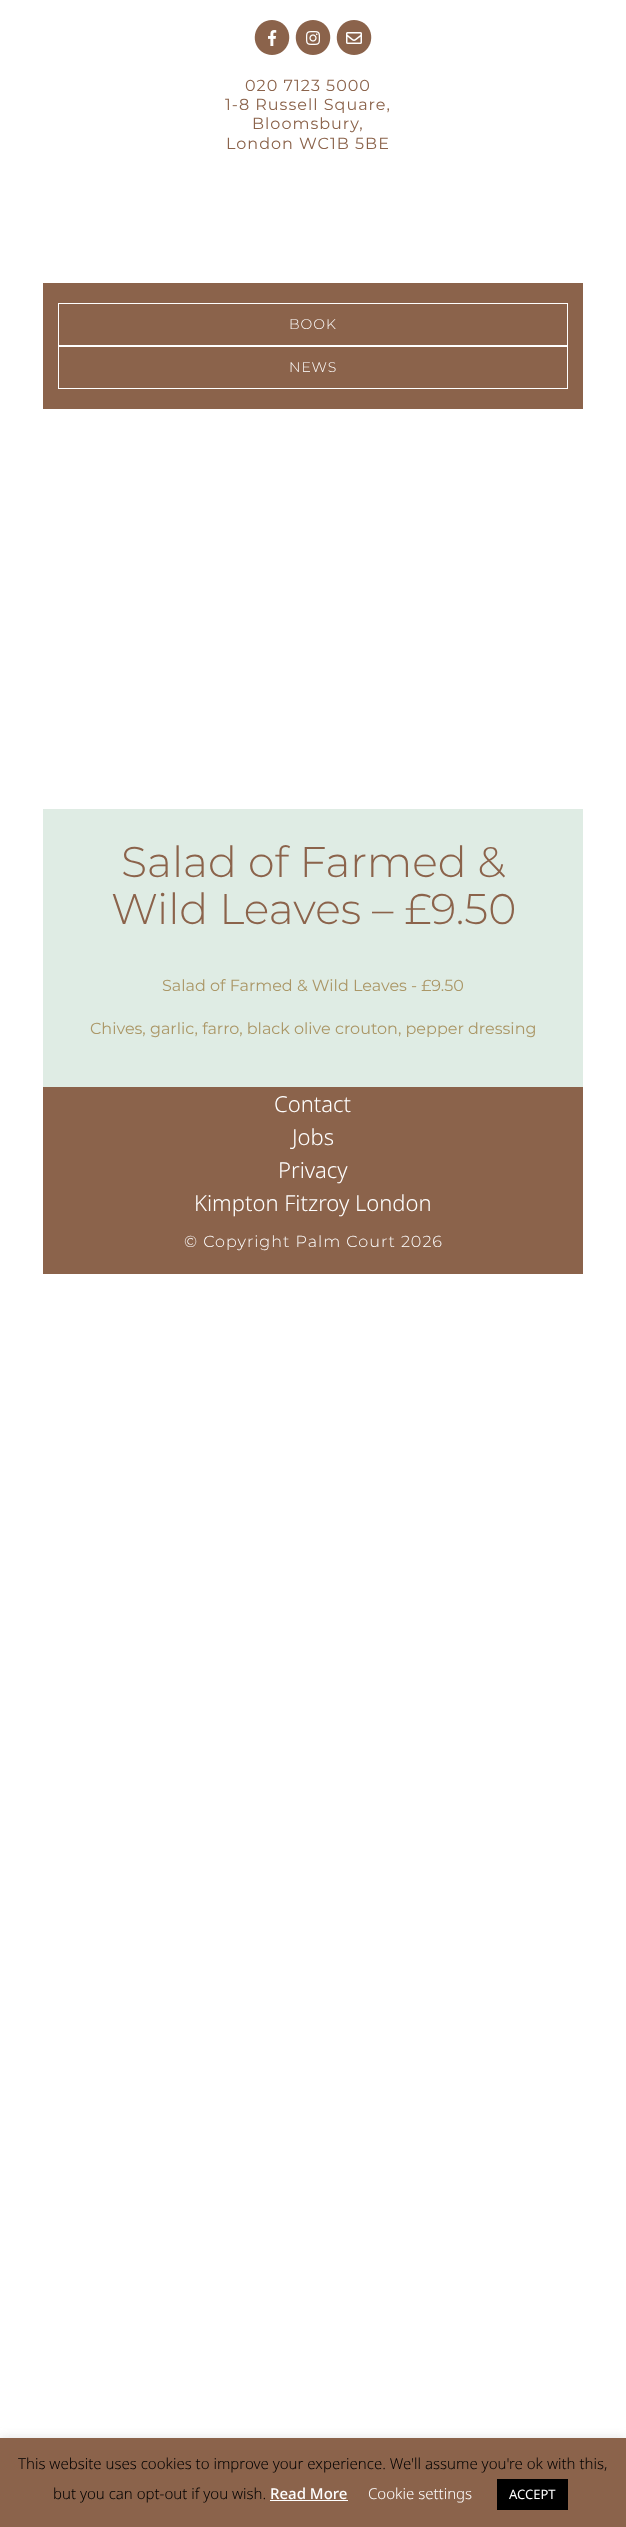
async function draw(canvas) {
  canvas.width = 626
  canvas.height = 2527
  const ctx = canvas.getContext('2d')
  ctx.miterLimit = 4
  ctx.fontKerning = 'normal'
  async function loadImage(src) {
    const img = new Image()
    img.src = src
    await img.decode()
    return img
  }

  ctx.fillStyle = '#fff'
  ctx.fillRect(0, 0, 626, 2527)
  ctx.fillStyle = '#8b634b'
  ctx.beginPath()
  ctx.moveTo(272, 20)
  ctx.bezierCurveTo(255.5, 20, 248.5, 41, 261.5, 51.5)
  ctx.bezierCurveTo(264.5, 53.5, 268, 55, 272, 55)
  ctx.bezierCurveTo(288.5, 55, 295.5, 34, 282.5, 23.5)
  ctx.bezierCurveTo(279.5, 21.5, 276, 20, 272, 20)
  ctx.closePath()
  ctx.fill()
  ctx.drawImage(await loadImage('image0.png'), 268, 30, 9, 16)
  ctx.beginPath()
  ctx.moveTo(313, 20)
  ctx.bezierCurveTo(309, 20, 305.5, 21.5, 302.5, 23.5)
  ctx.bezierCurveTo(289.5, 34, 296.5, 55, 313, 55)
  ctx.bezierCurveTo(329.5, 55, 336.5, 34, 323.5, 23.5)
  ctx.bezierCurveTo(320.5, 21.5, 317, 20, 313, 20)
  ctx.closePath()
  ctx.fill()
  ctx.drawImage(await loadImage('image1.png'), 306, 31, 14, 14)
  ctx.beginPath()
  ctx.moveTo(354, 20)
  ctx.bezierCurveTo(337.5, 20, 330.5, 41, 343.5, 51.5)
  ctx.bezierCurveTo(346.5, 53.5, 350, 55, 354, 55)
  ctx.bezierCurveTo(370.5, 55, 377.5, 34, 364.5, 23.5)
  ctx.bezierCurveTo(361.5, 21.5, 358, 20, 354, 20)
  ctx.closePath()
  ctx.fill()
  ctx.drawImage(await loadImage('image2.png'), 346, 32, 16, 12)
  ctx.letterSpacing = '1px'
  ctx.font = '16px Montserrat'
  ctx.fillText('020 7123 5000', 245, 91)
  ctx.fillText('1-8 Russell Square,', 225, 110)
  ctx.fillText('Bloomsbury,', 252, 129)
  ctx.fillText('London WC1B 5BE', 226, 149)
  ctx.fillRect(43, 283, 540, 126)
  ctx.strokeStyle = '#fff'
  ctx.strokeRect(58.5, 303.5, 509, 42)
  ctx.font = '300 14px Montserrat'
  ctx.fillStyle = '#fff'
  ctx.fillText('BOOK', 289, 329)
  ctx.strokeRect(58.5, 346.5, 509, 42)
  ctx.fillText('NEWS', 289, 372)
  ctx.fillStyle = '#dfece4'
  ctx.fillRect(43, 809, 540, 278)
  ctx.letterSpacing = '0px'
  ctx.font = '300 42.75px Montserrat'
  ctx.fillStyle = '#8b634b'
  ctx.fillText('Salad of Farmed &', 121, 877)
  ctx.fillText('Wild Leaves – £9.50', 111, 924)
  ctx.font = '16px Montserrat'
  ctx.fillStyle = '#ab9767'
  ctx.fillText('Salad of Farmed & Wild Leaves - £9.50', 162, 991)
  ctx.fillText('Chives, garlic, farro, black olive crouton, pepper dressing', 90, 1034)
  ctx.fillStyle = '#8b634b'
  ctx.fillRect(43, 1087, 540, 187)
  ctx.font = '300 22px Noto Sans'
  ctx.fillStyle = '#fff'
  ctx.fillText('Contact', 274, 1112)
  ctx.fillText('Jobs', 292, 1145)
  ctx.fillText('Privacy', 278, 1178)
  ctx.fillText('Kimpton Fitzroy London', 194, 1211)
  ctx.letterSpacing = '1px'
  ctx.font = '300 16px Montserrat'
  ctx.fillText('© Copyright Palm Court 2026', 184, 1247)
  ctx.fillStyle = '#acabab4d'
  ctx.filter = 'blur(5px)'
  ctx.beginPath()
  ctx.rect(0, 2437, 626, 89)
  ctx.fill()
  ctx.filter = 'none'
  ctx.fillStyle = '#8b634b'
  ctx.fillRect(0, 2438, 626, 89)
  ctx.letterSpacing = '0px'
  ctx.font = '300 15px Noto Sans'
  ctx.fillStyle = '#000'
  ctx.fillText('This website uses cookies to improve your experience. We\'ll assume you\'re ok with this,', 18, 2469)
  ctx.fillText('but you can opt-out if you wish.', 53, 2499)
  ctx.font = '500 15px Noto Sans'
  ctx.fillStyle = '#fff'
  ctx.fillText('Read More', 270, 2499)
  ctx.fillRect(270, 2500, 78, 1)
  ctx.font = '300 15px Noto Sans'
  ctx.fillText('Cookie settings', 368, 2499)
  ctx.fillStyle = '#000'
  ctx.fillRect(497, 2479, 71, 31)
  ctx.font = '13px Noto Sans'
  ctx.fillStyle = '#fff'
  ctx.fillText('ACCEPT', 509, 2499)
}

draw(document.querySelector('canvas'))
